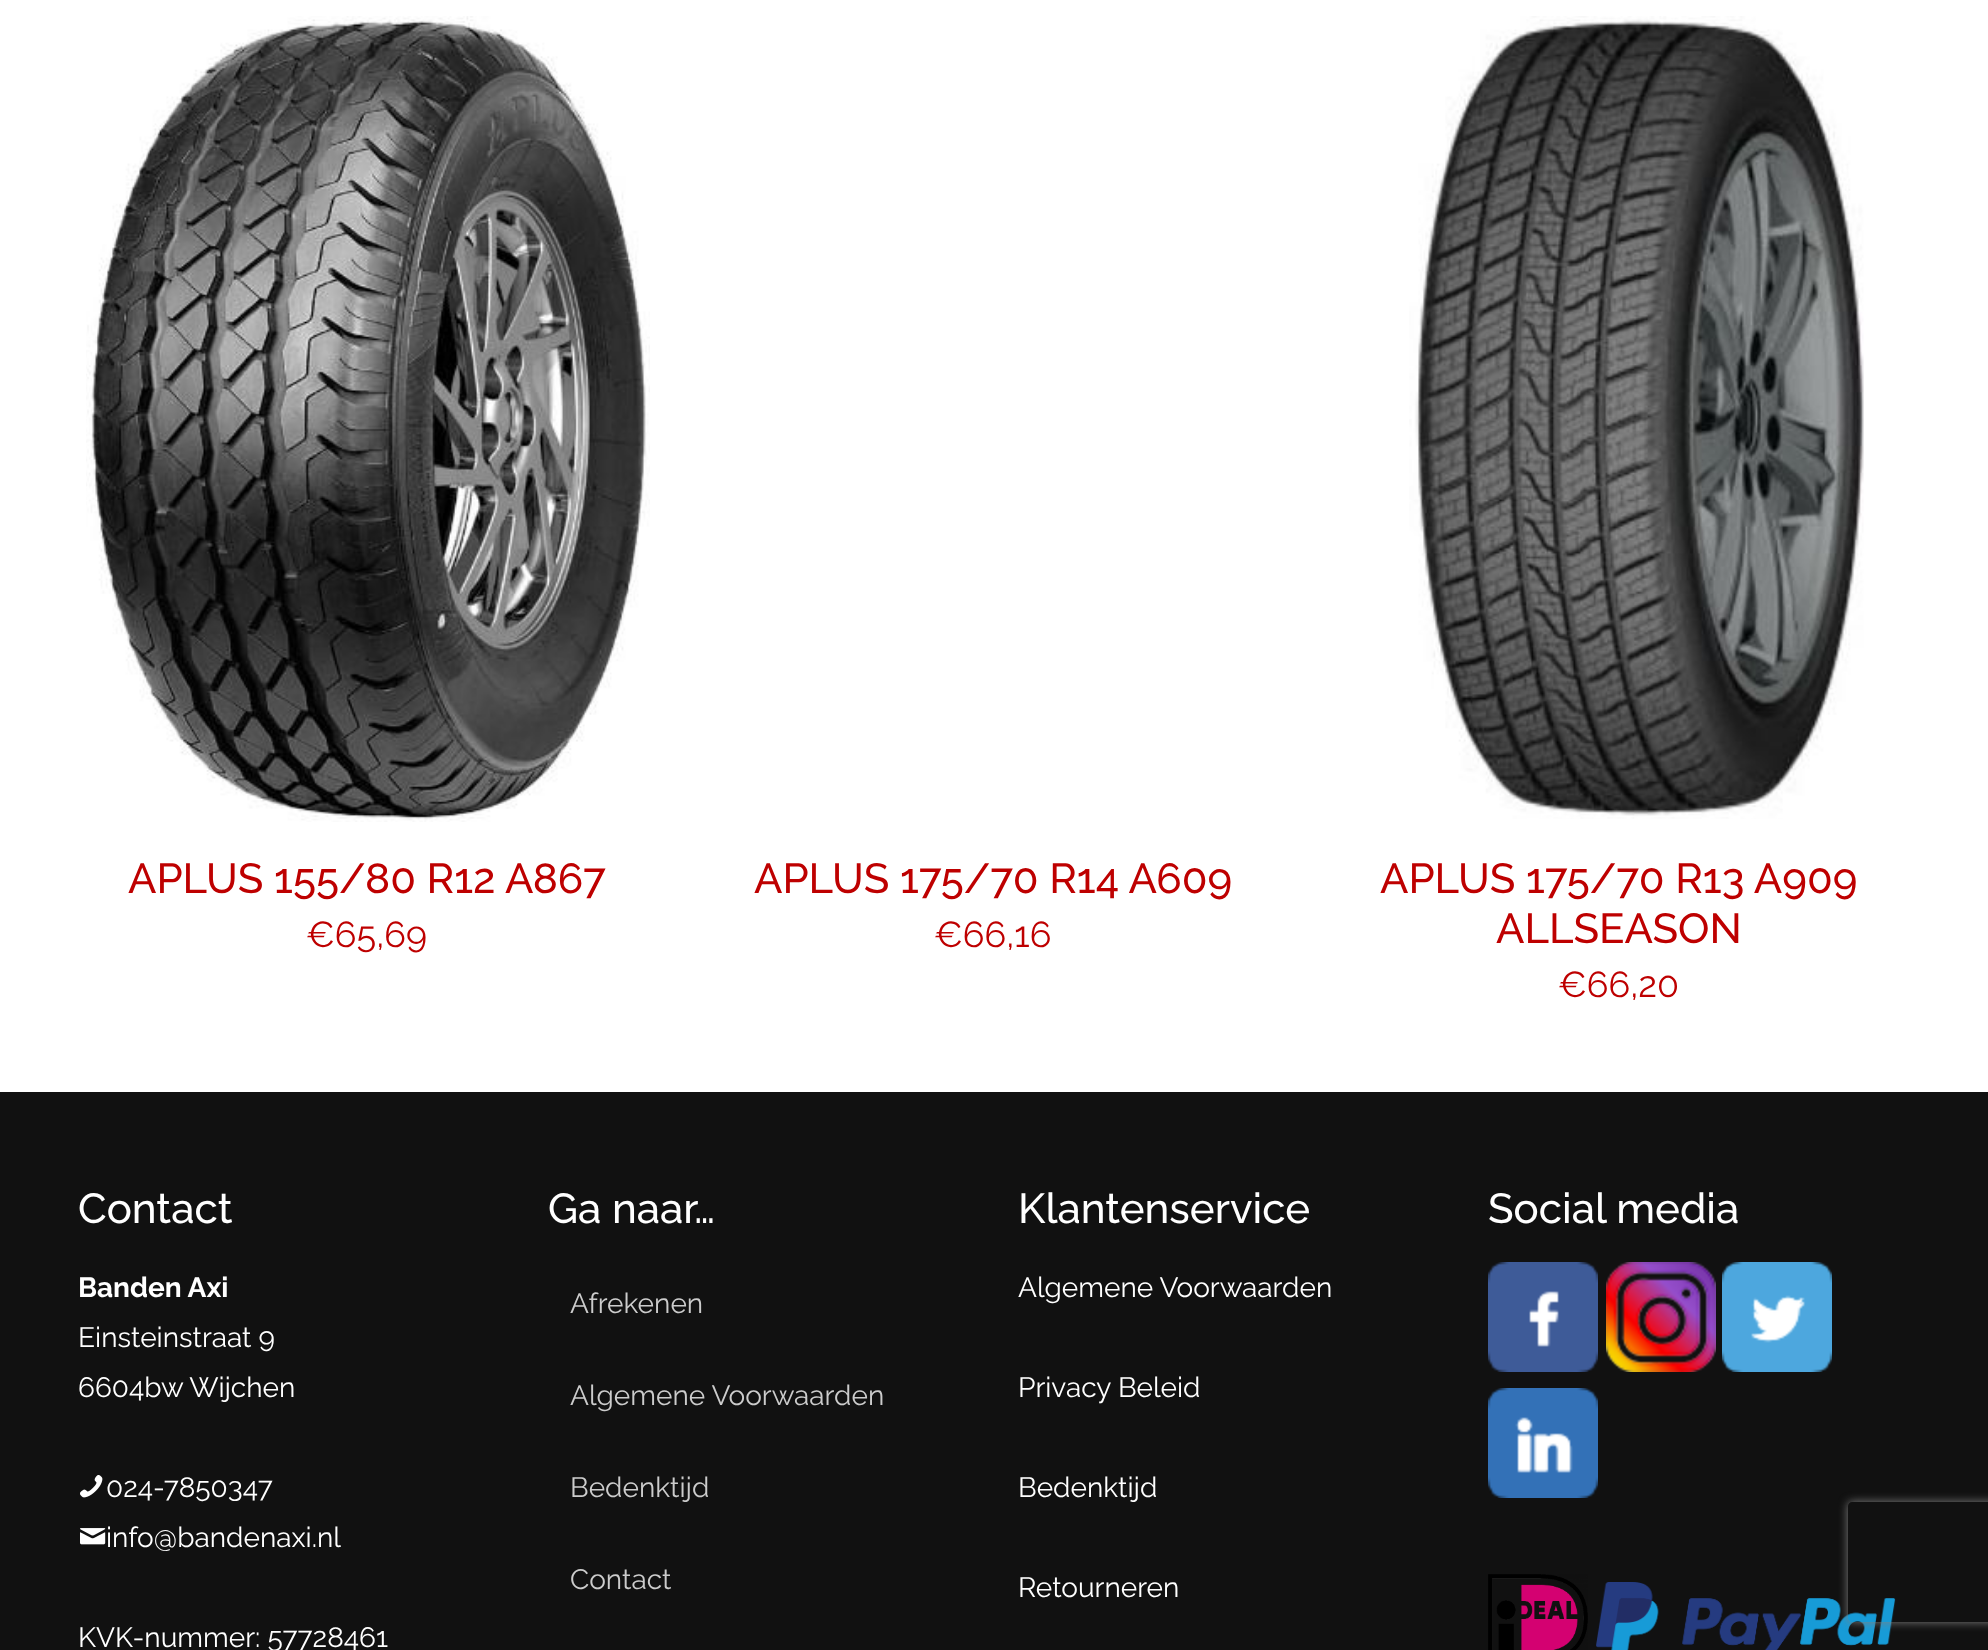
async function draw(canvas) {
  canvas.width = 1988
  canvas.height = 1650
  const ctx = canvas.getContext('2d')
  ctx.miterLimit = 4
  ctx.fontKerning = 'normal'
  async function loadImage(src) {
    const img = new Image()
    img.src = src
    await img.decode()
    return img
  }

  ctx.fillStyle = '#fff'
  ctx.fillRect(0, 0, 1988, 1650)
  ctx.drawImage(await loadImage('image0.png'), 86, 16, 564, 806)
  ctx.font = '500 42px Raleway'
  ctx.fillStyle = '#be0000'
  ctx.fillText('APLUS 155/80 R12 A867', 128, 893)
  ctx.font = '36px Raleway'
  ctx.fillText('€65,69', 306, 947)
  ctx.font = '500 42px Raleway'
  ctx.fillText('APLUS 175/70 R14 A609', 754, 893)
  ctx.font = '36px Raleway'
  ctx.fillText('€66,16', 934, 947)
  ctx.drawImage(await loadImage('image1.png'), 1409, 16, 455, 803)
  ctx.font = '500 42px Raleway'
  ctx.fillText('APLUS 175/70 R13 A909', 1380, 893)
  ctx.fillText('ALLSEASON', 1496, 943)
  ctx.font = '36px Raleway'
  ctx.fillText('€66,20', 1558, 997)
  ctx.fillStyle = '#111'
  ctx.fillRect(0, 1092, 1988, 558)
  ctx.font = '500 42px Raleway'
  ctx.fillStyle = '#fff'
  ctx.fillText('Contact', 78, 1223)
  ctx.font = 'bold 28px Raleway'
  ctx.fillText('Banden Axi', 78, 1297)
  ctx.font = '28px Raleway'
  ctx.fillText('Einsteinstraat 9', 78, 1347)
  ctx.fillText('6604bw Wijchen', 78, 1397)
  ctx.drawImage(await loadImage('image2.png'), 80, 1475, 23, 23)
  ctx.fillText('024-7850347', 106, 1497)
  ctx.drawImage(await loadImage('image3.png'), 80, 1528, 26, 17)
  ctx.fillText('info@bandenaxi.nl', 106, 1547)
  ctx.fillText('KVK-nummer: 57728461', 78, 1647)
  ctx.font = '500 42px Raleway'
  ctx.fillText('Ga naar…', 548, 1223)
  ctx.font = '28px Raleway'
  ctx.fillStyle = '#ccc'
  ctx.fillText('Afrekenen', 570, 1313)
  ctx.fillText('Algemene Voorwaarden', 570, 1405)
  ctx.fillText('Bedenktijd', 570, 1497)
  ctx.fillText('Contact', 570, 1589)
  ctx.font = '500 42px Raleway'
  ctx.fillStyle = '#fff'
  ctx.fillText('Klantenservice', 1018, 1223)
  ctx.font = '28px Raleway'
  ctx.fillText('Algemene Voorwaarden', 1018, 1297)
  ctx.fillText('Privacy Beleid', 1018, 1397)
  ctx.fillText('Bedenktijd', 1018, 1497)
  ctx.fillText('Retourneren', 1018, 1597)
  ctx.font = '500 42px Raleway'
  ctx.fillText('Social media', 1488, 1223)
  ctx.drawImage(await loadImage('image4.png'), 1488, 1262, 110, 110)
  ctx.drawImage(await loadImage('image5.png'), 1606, 1262, 110, 110)
  ctx.drawImage(await loadImage('image6.png'), 1722, 1262, 110, 110)
  ctx.drawImage(await loadImage('image7.png'), 1488, 1388, 110, 110)
  ctx.drawImage(await loadImage('image8.png'), 1488, 1574, 100, 76)
  ctx.drawImage(await loadImage('image9.png'), 1596, 1582, 300, 68)
  ctx.save()
  ctx.beginPath()
  ctx.moveTo(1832, 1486)
  ctx.lineTo(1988, 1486)
  ctx.lineTo(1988, 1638)
  ctx.lineTo(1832, 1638)
  ctx.closePath()
  ctx.moveTo(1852, 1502)
  ctx.lineTo(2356, 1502)
  ctx.bezierCurveTo(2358, 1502, 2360, 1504, 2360, 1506)
  ctx.lineTo(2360, 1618)
  ctx.bezierCurveTo(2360, 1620, 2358, 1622, 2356, 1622)
  ctx.lineTo(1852, 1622)
  ctx.bezierCurveTo(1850, 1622, 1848, 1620, 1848, 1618)
  ctx.lineTo(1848, 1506)
  ctx.bezierCurveTo(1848, 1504, 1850, 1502, 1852, 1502)
  ctx.closePath()
  ctx.clip('evenodd')
  ctx.fillStyle = '#808080'
  ctx.filter = 'blur(5px)'
  ctx.beginPath()
  ctx.roundRect(1848, 1502, 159, 120, 4)
  ctx.fill()
  ctx.filter = 'none'
  ctx.restore()
}

draw(document.querySelector('canvas'))
